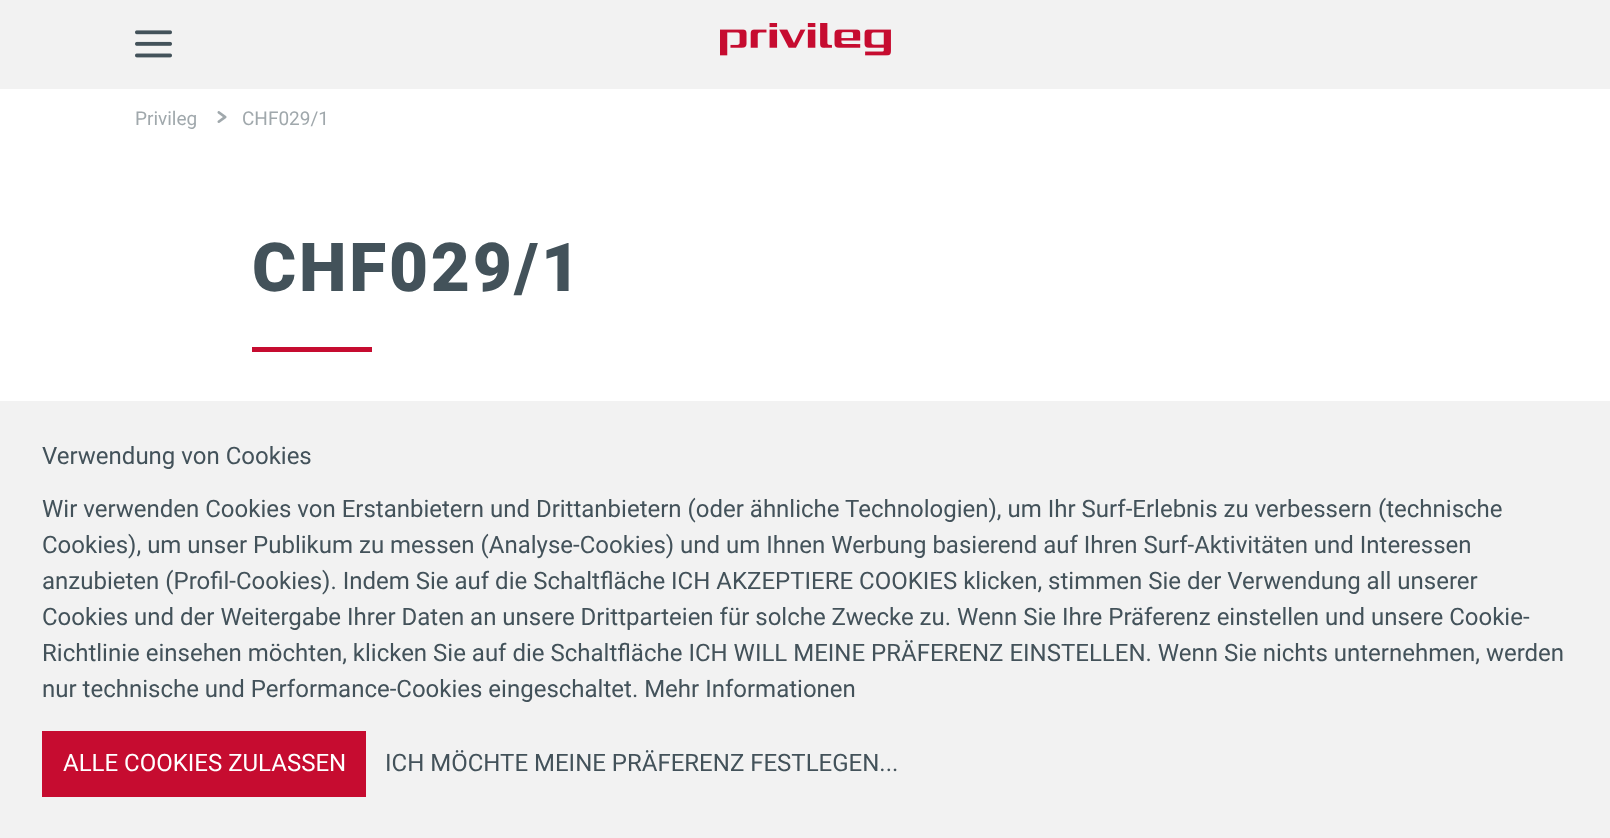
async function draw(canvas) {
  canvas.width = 1610
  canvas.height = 838
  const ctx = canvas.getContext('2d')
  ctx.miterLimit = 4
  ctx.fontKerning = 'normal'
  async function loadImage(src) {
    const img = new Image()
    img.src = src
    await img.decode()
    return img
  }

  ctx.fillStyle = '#fff'
  ctx.fillRect(0, 0, 1610, 838)
  ctx.fillStyle = '#f2f2f2'
  ctx.fillRect(0, 0, 1610, 89)
  ctx.drawImage(await loadImage('image0.png'), 135, 30, 37, 28)
  ctx.drawImage(await loadImage('image1.png'), 720, 23, 171, 33)
  ctx.font = '19px Roboto'
  ctx.fillStyle = '#a0a8ac'
  ctx.fillText('Privileg', 135, 125)
  ctx.drawImage(await loadImage('image2.png'), 217, 111, 10, 12)
  ctx.fillText('CHF029/1', 242, 125)
  ctx.letterSpacing = '2.75px'
  ctx.font = '900 67.5px Roboto'
  ctx.fillStyle = '#43525a'
  ctx.fillText('CHF029/1', 252, 291)
  ctx.fillStyle = '#c60c30'
  ctx.fillRect(252, 347, 120, 5)
  ctx.fillStyle = '#f2f2f2'
  ctx.fillRect(0, 401, 1610, 437)
  ctx.letterSpacing = '0px'
  ctx.font = '24px Roboto'
  ctx.fillStyle = '#43525a'
  ctx.fillText('Verwendung von Cookies', 42, 464)
  ctx.fillText('Wir verwenden Cookies von Erstanbietern und Drittanbietern (oder ähnliche Technologien), um Ihr Surf-Erlebnis zu verbessern (technische', 42, 517)
  ctx.fillText('Cookies), um unser Publikum zu messen (Analyse-Cookies) und um Ihnen Werbung basierend auf Ihren Surf-Aktivitäten und Interessen', 42, 553)
  ctx.fillText('anzubieten (Profil-Cookies). Indem Sie auf die Schaltfläche ICH AKZEPTIERE COOKIES klicken, stimmen Sie der Verwendung all unserer', 42, 589)
  ctx.fillText('Cookies und der Weitergabe Ihrer Daten an unsere Drittparteien für solche Zwecke zu. Wenn Sie Ihre Präferenz einstellen und unsere Cookie-', 42, 625)
  ctx.fillText('Richtlinie einsehen möchten, klicken Sie auf die Schaltfläche ICH WILL MEINE PRÄFERENZ EINSTELLEN. Wenn Sie nichts unternehmen, werden', 42, 661)
  ctx.fillText('nur technische und Performance-Cookies eingeschaltet. Mehr Informationen', 42, 697)
  ctx.fillStyle = '#c60c30'
  ctx.fillRect(42, 731, 324, 66)
  ctx.fillStyle = '#fff'
  ctx.fillText('ALLE COOKIES ZULASSEN', 63, 771)
  ctx.fillStyle = '#43525a'
  ctx.fillText('ICH MÖCHTE MEINE PRÄFERENZ FESTLEGEN...', 385, 771)
}

draw(document.querySelector('canvas'))
